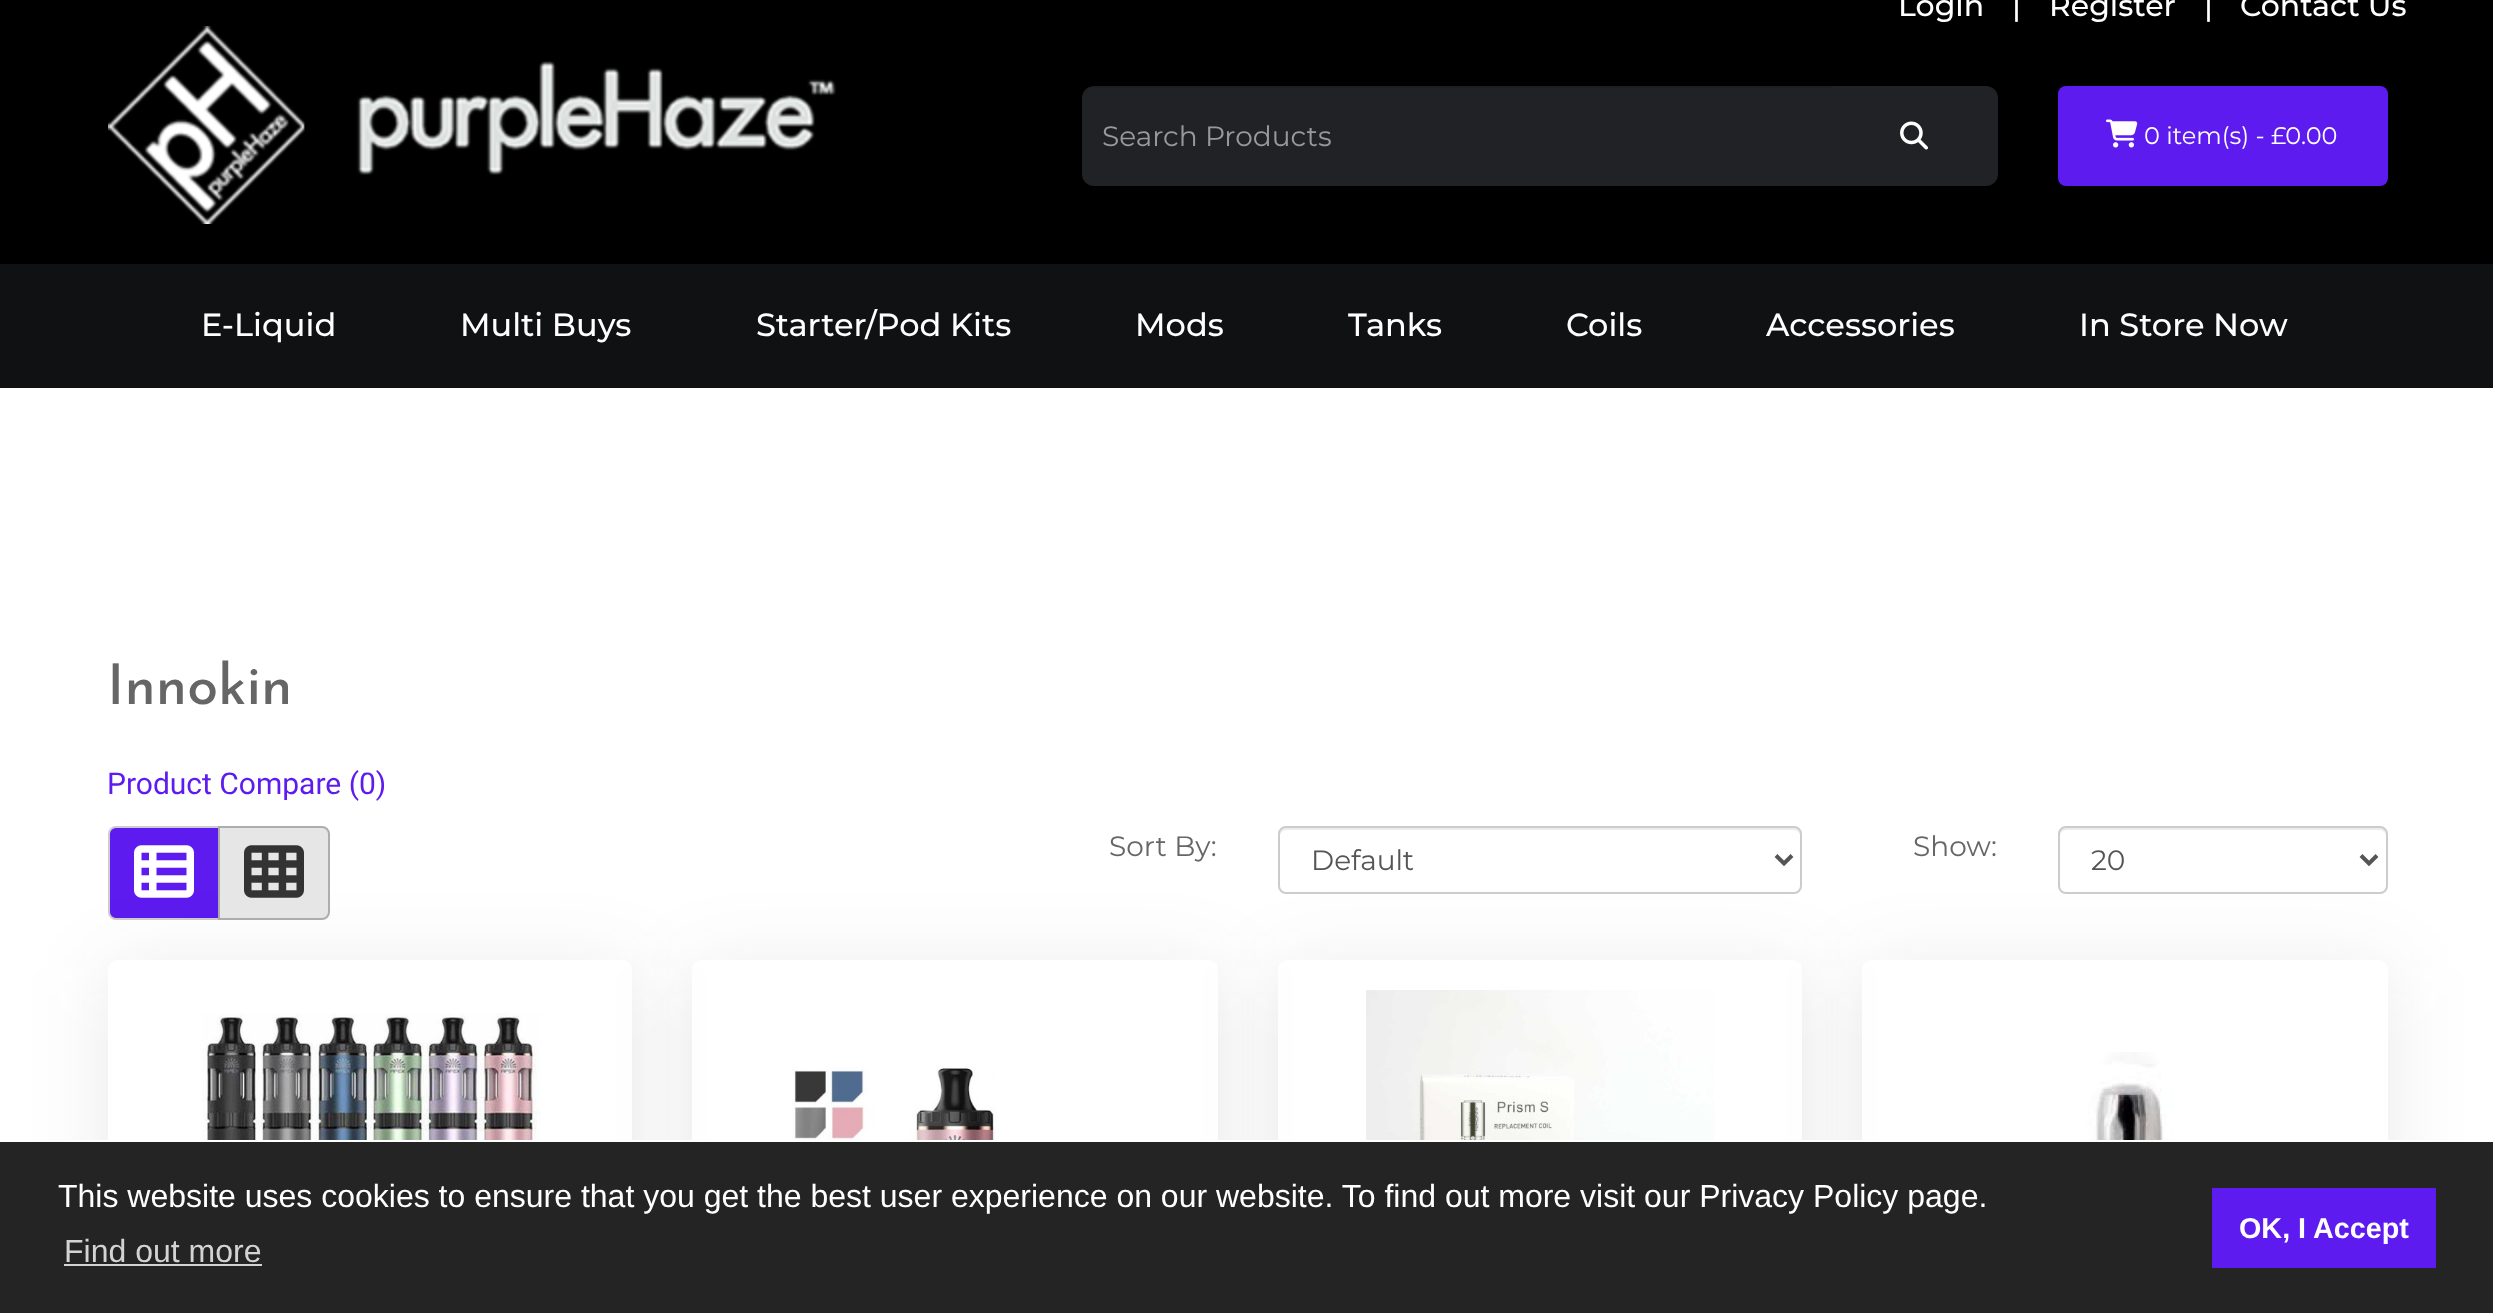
async function draw(canvas) {
  canvas.width = 2493
  canvas.height = 1313
  const ctx = canvas.getContext('2d')
  ctx.miterLimit = 4
  ctx.fontKerning = 'normal'
  async function loadImage(src) {
    const img = new Image()
    img.src = src
    await img.decode()
    return img
  }

  ctx.fillStyle = '#fff'
  ctx.fillRect(0, 0, 2493, 1313)
  ctx.fillStyle = '#000'
  ctx.fillRect(0, 0, 2493, 264)
  ctx.font = '500 30px Montserrat'
  ctx.fillStyle = '#fff'
  ctx.fillText('Login', 1898, 16)
  ctx.fillText('|', 2012, 16)
  ctx.fillText('Register', 2049, 16)
  ctx.fillText('|', 2204, 16)
  ctx.fillText('Contact Us', 2240, 16)
  ctx.drawImage(await loadImage('image0.png'), 108, 26, 728, 198)
  ctx.fillStyle = '#212226'
  ctx.beginPath()
  ctx.roundRect(1082, 86, 750, 100, [12, 0, 0, 12])
  ctx.fill()
  ctx.fillStyle = '#00000012'
  ctx.beginPath()
  ctx.moveTo(1094, 88)
  ctx.lineTo(1832, 88)
  ctx.lineTo(1832, 86)
  ctx.lineTo(1094, 86)
  ctx.bezierCurveTo(1086, 86, 1082, 93, 1082, 100)
  ctx.bezierCurveTo(1082, 93, 1087, 88, 1094, 88)
  ctx.closePath()
  ctx.fill()
  ctx.font = '28px Montserrat'
  ctx.fillStyle = '#999'
  ctx.fillText('Search Products', 1102, 146)
  ctx.fillStyle = '#212226'
  ctx.beginPath()
  ctx.roundRect(1832, 86, 166, 100, [0, 12, 12, 0])
  ctx.fill()
  ctx.drawImage(await loadImage('image1.png'), 1900, 121, 28, 29)
  ctx.fillStyle = '#5d1bf0'
  ctx.beginPath()
  ctx.roundRect(2058, 86, 330, 100, 8)
  ctx.fill()
  ctx.drawImage(await loadImage('image2.png'), 2106, 119, 32, 29)
  ctx.font = '24px Montserrat'
  ctx.fillStyle = '#fff'
  ctx.fillText('0 item(s) - £0.00', 2144, 144)
  ctx.fillStyle = '#101113'
  ctx.fillRect(0, 264, 2493, 124)
  ctx.font = '500 32px Montserrat'
  ctx.fillStyle = '#fff'
  ctx.fillText('E-Liquid', 201, 336)
  ctx.fillText('Multi Buys', 460, 336)
  ctx.fillText('Starter/Pod Kits', 756, 336)
  ctx.fillText('Mods', 1135, 336)
  ctx.fillText('Tanks', 1348, 336)
  ctx.fillText('Coils', 1566, 336)
  ctx.fillText('Accessories', 1766, 336)
  ctx.fillText('In Store Now', 2079, 336)
  ctx.font = '500 56px Josefin Sans'
  ctx.fillStyle = '#666'
  ctx.fillText('Innokin', 107, 704)
  ctx.font = '30px Roboto'
  ctx.fillStyle = '#5d1bf0'
  ctx.fillText('Product Compare (0)', 107, 794)
  ctx.beginPath()
  ctx.roundRect(109, 827, 110, 92, [7, 0, 0, 7])
  ctx.fill()
  ctx.strokeStyle = '#ccc'
  ctx.lineWidth = 2
  ctx.stroke()
  ctx.drawImage(await loadImage('image3.png'), 134, 845, 60, 53)
  ctx.save()
  ctx.beginPath()
  ctx.moveTo(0, 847)
  ctx.lineTo(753, 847)
  ctx.lineTo(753, 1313)
  ctx.lineTo(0, 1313)
  ctx.closePath()
  ctx.moveTo(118, 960)
  ctx.lineTo(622, 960)
  ctx.bezierCurveTo(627.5, 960, 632, 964.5, 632, 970)
  ctx.lineTo(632, 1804)
  ctx.bezierCurveTo(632, 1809.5, 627.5, 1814, 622, 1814)
  ctx.lineTo(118, 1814)
  ctx.bezierCurveTo(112.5, 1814, 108, 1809.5, 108, 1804)
  ctx.lineTo(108, 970)
  ctx.bezierCurveTo(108, 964.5, 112.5, 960, 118, 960)
  ctx.closePath()
  ctx.clip('evenodd')
  ctx.fillStyle = '#3232321a'
  ctx.filter = 'blur(40px)'
  ctx.beginPath()
  ctx.roundRect(108, 968, 524, 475, 10)
  ctx.fill()
  ctx.filter = 'none'
  ctx.restore()
  ctx.fillStyle = '#e6e6e6'
  ctx.beginPath()
  ctx.roundRect(219, 827, 110, 92, [0, 7, 7, 0])
  ctx.fill()
  ctx.strokeStyle = '#adadad'
  ctx.stroke()
  ctx.drawImage(await loadImage('image4.png'), 244, 845, 60, 53)
  ctx.font = '28px Montserrat'
  ctx.fillStyle = '#666'
  ctx.fillText('Sort By:', 1109, 856)
  ctx.fillStyle = '#ececec'
  ctx.beginPath()
  ctx.moveTo(1286, 830)
  ctx.lineTo(1794, 830)
  ctx.bezierCurveTo(1797, 830, 1800, 833, 1800, 836)
  ctx.lineTo(1800, 834)
  ctx.bezierCurveTo(1800, 831, 1797, 828, 1794, 828)
  ctx.lineTo(1286, 828)
  ctx.bezierCurveTo(1283, 828, 1280, 831, 1280, 834)
  ctx.lineTo(1280, 836)
  ctx.bezierCurveTo(1280, 833, 1283, 830, 1286, 830)
  ctx.closePath()
  ctx.fill()
  ctx.beginPath()
  ctx.roundRect(1279, 827, 522, 66, 7)
  ctx.strokeStyle = '#ccc'
  ctx.stroke()
  ctx.beginPath()
  ctx.moveTo(1776, 855.5)
  ctx.lineTo(1784, 863.5)
  ctx.lineTo(1792, 855.5)
  ctx.strokeStyle = '#555'
  ctx.lineWidth = 4
  ctx.stroke()
  ctx.fillStyle = '#555'
  ctx.fillText('Default', 1311, 870)
  ctx.fillStyle = '#666'
  ctx.fillText('Show:', 1913, 856)
  ctx.fillStyle = '#ececec'
  ctx.beginPath()
  ctx.moveTo(2066, 830)
  ctx.lineTo(2380, 830)
  ctx.bezierCurveTo(2383, 830, 2386, 833, 2386, 836)
  ctx.bezierCurveTo(2386, 832, 2385, 828, 2380, 828)
  ctx.lineTo(2066, 828)
  ctx.bezierCurveTo(2061, 828, 2060, 832, 2060, 836)
  ctx.bezierCurveTo(2060, 833, 2063, 830, 2066, 830)
  ctx.closePath()
  ctx.fill()
  ctx.beginPath()
  ctx.roundRect(2059, 827, 328, 66, 7)
  ctx.strokeStyle = '#ccc'
  ctx.lineWidth = 2
  ctx.stroke()
  ctx.beginPath()
  ctx.moveTo(2361, 855.5)
  ctx.lineTo(2369, 863.5)
  ctx.lineTo(2377, 855.5)
  ctx.strokeStyle = '#555'
  ctx.lineWidth = 4
  ctx.stroke()
  ctx.fillStyle = '#555'
  ctx.fillText('20', 2091, 870)
  ctx.drawImage(await loadImage('image5.png'), 202, 1013, 339, 127)
  ctx.save()
  ctx.beginPath()
  ctx.moveTo(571, 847)
  ctx.lineTo(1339, 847)
  ctx.lineTo(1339, 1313)
  ctx.lineTo(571, 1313)
  ctx.closePath()
  ctx.moveTo(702, 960)
  ctx.lineTo(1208, 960)
  ctx.bezierCurveTo(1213.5, 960, 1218, 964.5, 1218, 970)
  ctx.lineTo(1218, 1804)
  ctx.bezierCurveTo(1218, 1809.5, 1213.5, 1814, 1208, 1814)
  ctx.lineTo(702, 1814)
  ctx.bezierCurveTo(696.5, 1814, 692, 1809.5, 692, 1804)
  ctx.lineTo(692, 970)
  ctx.bezierCurveTo(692, 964.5, 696.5, 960, 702, 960)
  ctx.closePath()
  ctx.clip('evenodd')
  ctx.fillStyle = '#3232321a'
  ctx.filter = 'blur(40px)'
  ctx.beginPath()
  ctx.roundRect(692, 968, 526, 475, 10)
  ctx.fill()
  ctx.filter = 'none'
  ctx.restore()
  ctx.drawImage(await loadImage('image6.png'), 792, 1066, 207, 74)
  ctx.save()
  ctx.beginPath()
  ctx.moveTo(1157, 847)
  ctx.lineTo(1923, 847)
  ctx.lineTo(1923, 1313)
  ctx.lineTo(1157, 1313)
  ctx.closePath()
  ctx.moveTo(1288, 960)
  ctx.lineTo(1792, 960)
  ctx.bezierCurveTo(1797.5, 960, 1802, 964.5, 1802, 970)
  ctx.lineTo(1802, 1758)
  ctx.bezierCurveTo(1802, 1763.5, 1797.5, 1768, 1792, 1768)
  ctx.lineTo(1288, 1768)
  ctx.bezierCurveTo(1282.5, 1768, 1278, 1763.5, 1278, 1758)
  ctx.lineTo(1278, 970)
  ctx.bezierCurveTo(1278, 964.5, 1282.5, 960, 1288, 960)
  ctx.closePath()
  ctx.clip('evenodd')
  ctx.fillStyle = '#3232321a'
  ctx.filter = 'blur(40px)'
  ctx.beginPath()
  ctx.roundRect(1278, 968, 524, 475, 10)
  ctx.fill()
  ctx.filter = 'none'
  ctx.restore()
  ctx.drawImage(await loadImage('image7.png'), 1366, 990, 348, 150)
  ctx.save()
  ctx.beginPath()
  ctx.moveTo(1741, 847)
  ctx.lineTo(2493, 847)
  ctx.lineTo(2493, 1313)
  ctx.lineTo(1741, 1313)
  ctx.closePath()
  ctx.moveTo(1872, 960)
  ctx.lineTo(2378, 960)
  ctx.bezierCurveTo(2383.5, 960, 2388, 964.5, 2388, 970)
  ctx.lineTo(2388, 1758)
  ctx.bezierCurveTo(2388, 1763.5, 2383.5, 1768, 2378, 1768)
  ctx.lineTo(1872, 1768)
  ctx.bezierCurveTo(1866.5, 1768, 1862, 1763.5, 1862, 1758)
  ctx.lineTo(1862, 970)
  ctx.bezierCurveTo(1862, 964.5, 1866.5, 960, 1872, 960)
  ctx.closePath()
  ctx.clip('evenodd')
  ctx.fillStyle = '#3232321a'
  ctx.filter = 'blur(40px)'
  ctx.beginPath()
  ctx.roundRect(1862, 968, 526, 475, 10)
  ctx.fill()
  ctx.filter = 'none'
  ctx.restore()
  ctx.drawImage(await loadImage('image8.png'), 1964, 1052, 210, 88)
  ctx.fillStyle = '#242424'
  ctx.fillRect(0, 1142, 2493, 171)
  ctx.fillStyle = '#fff'
  ctx.fillRect(63, 1140, 2370, 2)
  ctx.font = '32px Liberation Sans'
  ctx.fillText('This website uses cookies to ensure that you get the best user experience on our website. To find out more visit our Privacy Policy page.', 58, 1207)
  ctx.fillStyle = '#d3d3d3'
  ctx.fillText('Find out more', 64, 1262)
  ctx.fillRect(64, 1264, 198, 2)
  ctx.fillStyle = '#5d1bf0'
  ctx.fillRect(2212, 1188, 224, 80)
  ctx.font = 'bold 28.75px Liberation Sans'
  ctx.fillStyle = '#fff'
  ctx.fillText('OK, I Accept', 2239, 1238)
}

draw(document.querySelector('canvas'))
